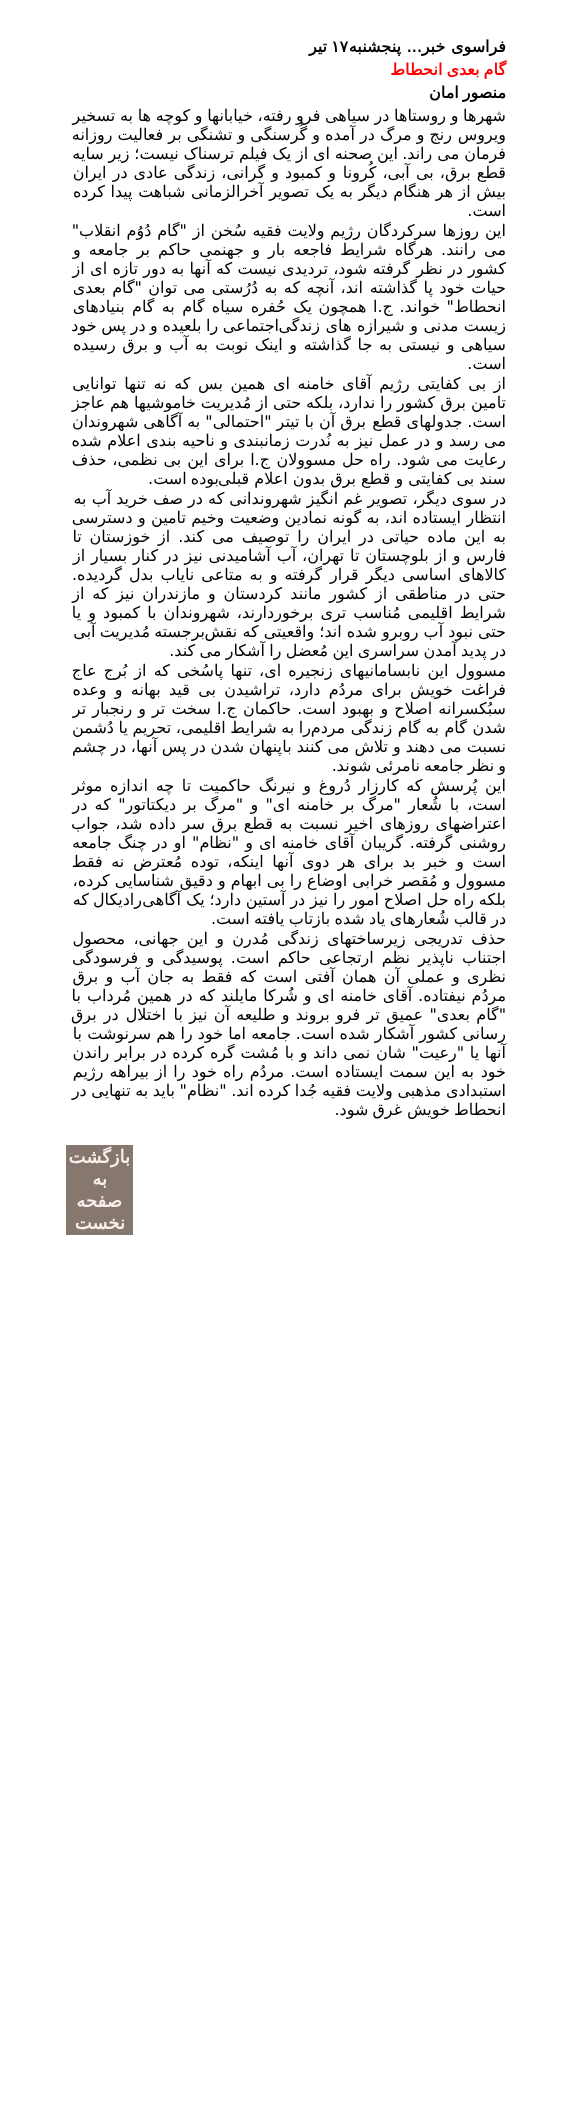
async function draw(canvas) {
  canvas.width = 578
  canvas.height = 2113
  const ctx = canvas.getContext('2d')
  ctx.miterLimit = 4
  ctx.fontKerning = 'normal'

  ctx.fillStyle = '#fff'
  ctx.fillRect(0, 0, 578, 2113)
  ctx.wordSpacing = '0.5px'
  ctx.direction = 'rtl'
  ctx.font = 'bold 16px DejaVu Sans'
  ctx.fillStyle = '#000'
  ctx.fillText('فراسوی خبر... پنجشنبه', 506, 52)
  ctx.wordSpacing = '0px'
  ctx.direction = 'ltr'
  ctx.fillText('۱۷', 331, 52)
  ctx.direction = 'rtl'
  ctx.fillText('تیر', 327, 52)
  ctx.wordSpacing = '-1px'
  ctx.fillStyle = '#f00'
  ctx.fillText('گام بعدی انحطاط', 506, 75)
  ctx.fillStyle = '#000'
  ctx.fillText('منصور امان', 506, 98)
  ctx.wordSpacing = '-0.4px'
  ctx.font = '16px DejaVu Sans'
  ctx.fillText('شهرها و روستاها در سیاهی فرو رفته، خیابانها و کوچه ها به تسخیر', 506, 121)
  ctx.wordSpacing = '0px'
  ctx.fillText('ویروس', 506, 140)
  ctx.fillText('رنج و مرگ در آمده و گُرسنگی و تشنگی بر فعالیت روزانه', 452, 140)
  ctx.fillText('فرمان می راند.', 506, 159)
  ctx.wordSpacing = '-0.25px'
  ctx.fillText('این صحنه ای از یک فیلم ترسناک نیست؛ زیر سایه', 398, 159)
  ctx.wordSpacing = '1px'
  ctx.fillText('قطع برق، بی آبی، کُرونا', 506, 178)
  ctx.fillText('و کمبود و گرانی، زندگی عادی در ایران', 336, 178)
  ctx.wordSpacing = '0.5px'
  ctx.fillText('بیش از هر هنگام دیگر به یک', 506, 197)
  ctx.fillText('تصویر آخرالزمانی شباهت پیدا کرده', 309, 197)
  ctx.wordSpacing = '0px'
  ctx.fillText('است.', 506, 216)
  ctx.wordSpacing = '0.75px'
  ctx.fillText('این روزها سرکردگان رژیم ولایت فقیه سُخن از "گام دُوُم انقلاب"', 506, 236)
  ctx.wordSpacing = '0px'
  ctx.fillText('می', 506, 255)
  ctx.wordSpacing = '3.1px'
  ctx.fillText('رانند. هرگاه شرایط فاجعه بار و جهنمی حاکم بر جامعه و', 476, 255)
  ctx.wordSpacing = '0.25px'
  ctx.fillText('کشور در نظر', 506, 274)
  ctx.fillText('گرفته شود، تردیدی نیست که آنها به دور تازه ای از', 410, 274)
  ctx.wordSpacing = '1.5px'
  ctx.fillText('حیات خود پا گذاشته', 506, 293)
  ctx.wordSpacing = '1.25px'
  ctx.fillText('اند، آنچه که به دُرُستی می توان "گام بعدی', 363, 293)
  ctx.wordSpacing = '1.5px'
  ctx.fillText('انحطاط" خواند. ج.ا همچون', 506, 312)
  ctx.wordSpacing = '2.25px'
  ctx.fillText('یک حُفره سیاه گام به گام بنیادهای', 312, 312)
  ctx.wordSpacing = '0.5px'
  ctx.fillText('زیست مدنی و شیرازه های زندگی', 506, 331)
  ctx.wordSpacing = '-0.5px'
  ctx.fillText('اجتماعی را بلعیده و در پس خود', 279, 331)
  ctx.wordSpacing = '1.5px'
  ctx.fillText('سیاهی و نیستی به جا گذاشته و اینک نوبت', 506, 350)
  ctx.fillText('به آب و برق رسیده', 208, 350)
  ctx.wordSpacing = '0px'
  ctx.fillText('است.', 506, 369)
  ctx.wordSpacing = '2.6px'
  ctx.fillText('از بی کفایتی رژیم آقای خامنه ای همین بس که نه تنها توانایی', 506, 389)
  ctx.wordSpacing = '0px'
  ctx.fillText('تامین برق', 506, 408)
  ctx.wordSpacing = '-0.25px'
  ctx.fillText('کشور را ندارد، بلکه حتی از مُدیریت خاموشیها هم عاجز', 435, 408)
  ctx.wordSpacing = '0px'
  ctx.fillText('است. جدولهای قطع', 506, 427)
  ctx.fillText('برق آن با تیتر "احتمالی" به آگاهی شهروندان', 366, 427)
  ctx.wordSpacing = '0.5px'
  ctx.fillText('می رسد و در عمل نیز به', 506, 446)
  ctx.fillText('نُدرت زمانبندی و ناحیه بندی اعلام شده', 331, 446)
  ctx.wordSpacing = '0.75px'
  ctx.fillText('رعایت می شود. راه حل مسوولان', 506, 465)
  ctx.fillText('ج.ا برای این بی نظمی، حذف', 270, 465)
  ctx.wordSpacing = '0px'
  ctx.fillText('سند بی کفایتی و قطع برق بدون اعلام قبلی', 506, 484)
  ctx.wordSpacing = '-1px'
  ctx.fillText('بوده است.', 219, 484)
  ctx.wordSpacing = '0px'
  ctx.fillText('در سوی دیگر، تصویر غم انگیز شهروندانی که در صف خرید آب به', 506, 504)
  ctx.fillText('انتظار', 506, 523)
  ctx.wordSpacing = '0.25px'
  ctx.fillText('ایستاده اند، به گونه نمادین وضعیت وخیم تامین و دسترسی', 461, 523)
  ctx.wordSpacing = '2.75px'
  ctx.fillText('به این ماده', 506, 542)
  ctx.fillText('حیاتی در ایران را توصیف می کند. از خوزستان تا', 419, 542)
  ctx.wordSpacing = '0.75px'
  ctx.fillText('فارس و از بلوچستان تا', 506, 561)
  ctx.fillText('تهران، آب آشامیدنی نیز در کنار بسیار از', 344, 561)
  ctx.wordSpacing = '2px'
  ctx.fillText('کالاهای اساسی دیگر قرار', 506, 580)
  ctx.fillText('گرفته و به متاعی نایاب بدل گردیده.', 322, 580)
  ctx.wordSpacing = '2.75px'
  ctx.fillText('حتی در مناطقی از کشور مانند', 506, 599)
  ctx.fillText('کردستان و مازندران نیز که از', 282, 599)
  ctx.wordSpacing = '2px'
  ctx.fillText('شرایط اقلیمی مُناسب تری برخوردارند،', 506, 618)
  ctx.fillText('شهروندان با کمبود و یا', 230, 618)
  ctx.wordSpacing = '0px'
  ctx.fillText('حتی نبود آب روبرو شده اند؛ واقعیتی که نقش', 506, 637)
  ctx.wordSpacing = '-1px'
  ctx.fillText('برجسته مُدیریت آبی', 205, 637)
  ctx.wordSpacing = '-0.75px'
  ctx.fillText('در پدید آمدن سراسری این مُعضل را آشکار می کند.', 506, 656)
  ctx.wordSpacing = '2px'
  ctx.fillText('مسوول این نابسامانیهای زنجیره ای، تنها پاسُخی که از بُرج عاج', 506, 676)
  ctx.wordSpacing = '0px'
  ctx.fillText('فراغت', 506, 695)
  ctx.wordSpacing = '3.25px'
  ctx.fillText('خویش برای مردُم دارد، تراشیدن بی قید بهانه و وعده', 453, 695)
  ctx.wordSpacing = '1px'
  ctx.fillText('سبُکسرانه اصلاح و', 506, 714)
  ctx.fillText('بهبود است. حاکمان ج.ا سخت تر و رنجبار تر', 374, 714)
  ctx.wordSpacing = '0.5px'
  ctx.fillText('شدن گام به گام زندگی مردم', 506, 733)
  ctx.wordSpacing = '-0.5px'
  ctx.fillText('را به شرایط اقلیمی، تحریم یا دُشمن', 311, 733)
  ctx.wordSpacing = '0px'
  ctx.fillText('نسبت می دهند و تلاش می کنند با', 506, 752)
  ctx.wordSpacing = '-0.5px'
  ctx.fillText('پنهان شدن در پس آنها، در چشم', 282, 752)
  ctx.wordSpacing = '-1px'
  ctx.fillText('و نظر جامعه نامرئی شوند.', 506, 771)
  ctx.wordSpacing = '2.6px'
  ctx.fillText('این پُرسش که کارزار دُروغ و نیرنگ حاکمیت تا چه اندازه موثر', 506, 791)
  ctx.wordSpacing = '3px'
  ctx.fillText('است، با', 506, 810)
  ctx.wordSpacing = '2.25px'
  ctx.fillText('شُعار "مرگ بر خامنه ای" و "مرگ بر دیکتاتور" که در', 442, 810)
  ctx.wordSpacing = '1.5px'
  ctx.fillText('اعتراضهای روزهای', 506, 829)
  ctx.fillText('اخیر نسبت به قطع برق سر داده شد، جواب', 373, 829)
  ctx.fillText('روشنی گرفته. گریبان آقای خامنه', 506, 848)
  ctx.wordSpacing = '1px'
  ctx.fillText('ای و "نظام" او در چنگ جامعه', 276, 848)
  ctx.wordSpacing = '3.5px'
  ctx.fillText('است و خبر بد برای هر دوی آنها اینکه،', 506, 867)
  ctx.fillText('توده مُعترض نه فقط', 219, 867)
  ctx.wordSpacing = '0px'
  ctx.fillText('مسوول و مُقصر خرابی اوضاع را بی ابهام و دقیق', 506, 886)
  ctx.fillText('شناسایی کرده،', 174, 886)
  ctx.wordSpacing = '-0.25px'
  ctx.fillText('بلکه راه حل اصلاح امور را نیز در آستین دارد؛ یک آگاهی', 506, 905)
  ctx.wordSpacing = '-1px'
  ctx.fillText('رادیکال که', 142, 905)
  ctx.wordSpacing = '-0.75px'
  ctx.fillText('در قالب شُعارهای یاد شده بازتاب یافته است.', 506, 924)
  ctx.wordSpacing = '3.25px'
  ctx.fillText('حذف تدریجی زیرساختهای زندگی مُدرن و این جهانی، محصول', 506, 944)
  ctx.fillText('اجتناب ناپذیر', 506, 963)
  ctx.wordSpacing = '3.1px'
  ctx.fillText('نظم ارتجاعی حاکم است. پوسیدگی و فرسودگی', 410, 963)
  ctx.wordSpacing = '2.25px'
  ctx.fillText('نظری و عملی آن همان آفتی است', 506, 982)
  ctx.fillText('که فقط به جان آب و برق', 256, 982)
  ctx.wordSpacing = '0.75px'
  ctx.fillText('مردُم نیفتاده. آقای خامنه ای و شُرکا مایلند', 506, 1001)
  ctx.wordSpacing = '1px'
  ctx.fillText('که در همین مُرداب با', 215, 1001)
  ctx.wordSpacing = '1.25px'
  ctx.fillText('"گام بعدی" عمیق تر فرو بروند و طلیعه آن نیز با', 506, 1020)
  ctx.wordSpacing = '2px'
  ctx.fillText('اختلال در برق', 166, 1020)
  ctx.wordSpacing = '0px'
  ctx.fillText('رسانی کشور آشکار شده است. جامعه اما خود را هم سرنوشت', 506, 1039)
  ctx.fillText('با', 82, 1039)
  ctx.wordSpacing = '0.6px'
  ctx.fillText('آنها یا "رعیت" شان نمی داند و با مُشت گره کرده در برابر راندن', 506, 1058)
  ctx.wordSpacing = '0px'
  ctx.fillText('خود', 506, 1077)
  ctx.wordSpacing = '1px'
  ctx.fillText('به این سمت ایستاده است. مردُم راه خود را از بیراهه رژیم', 474, 1077)
  ctx.wordSpacing = '0px'
  ctx.fillText('استبدادی', 506, 1096)
  ctx.wordSpacing = '-0.5px'
  ctx.fillText('مذهبی ولایت فقیه جُدا کرده اند. "نظام" باید به تنهایی در', 441, 1096)
  ctx.wordSpacing = '-1px'
  ctx.fillText('انحطاط خویش', 506, 1115)
  ctx.fillText('غرق شود.', 402, 1115)
  ctx.fillStyle = '#87786f'
  ctx.fillRect(66, 1145, 67, 90)
  ctx.wordSpacing = '0px'
  ctx.font = 'bold 18px DejaVu Sans'
  ctx.fillStyle = '#faf1ec'
  ctx.fillText('بازگشت', 130, 1163)
  ctx.fillText('به', 107, 1185)
  ctx.fillText('صفحه', 122, 1207)
  ctx.fillText('نخست', 125, 1229)
}

draw(document.querySelector('canvas'))
